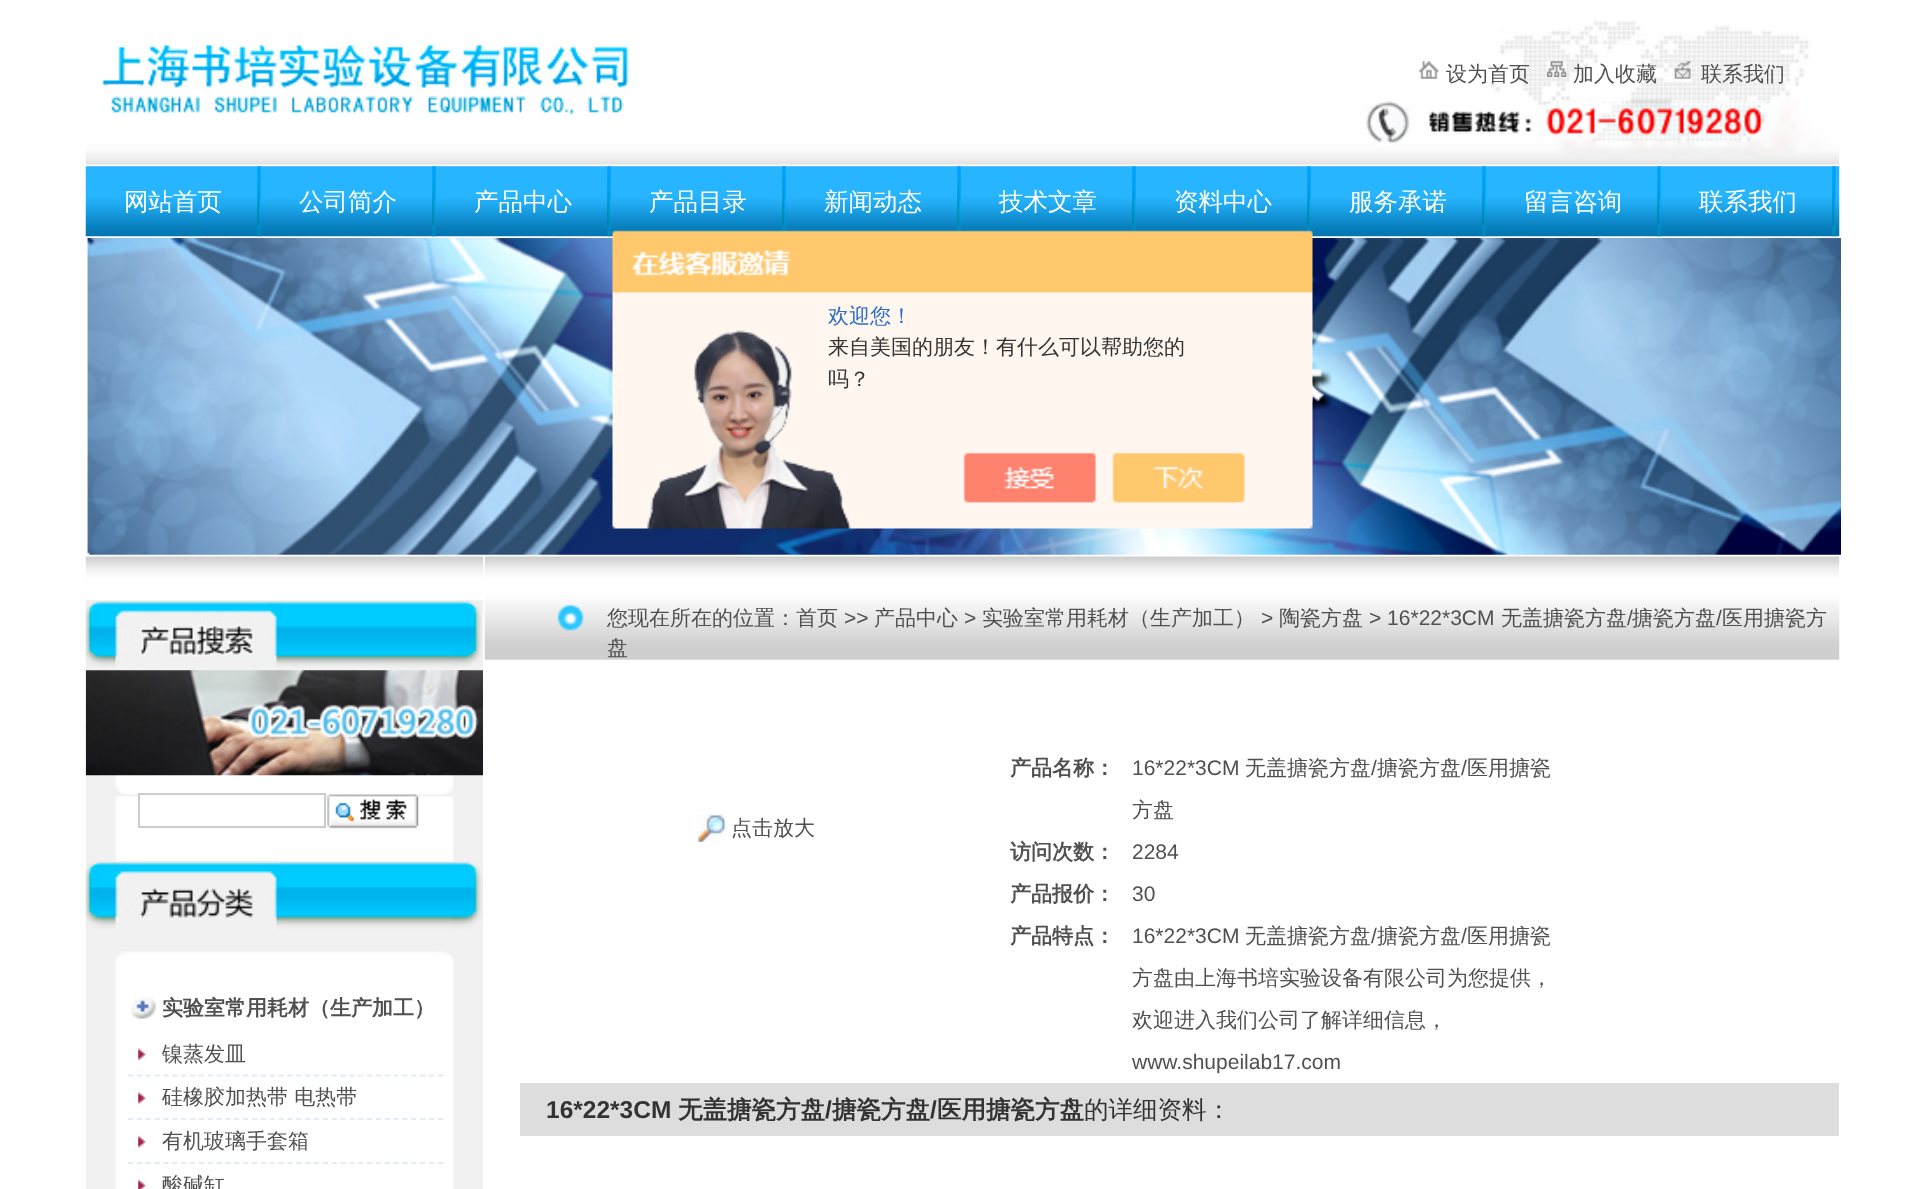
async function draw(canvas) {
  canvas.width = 1924
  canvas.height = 1189
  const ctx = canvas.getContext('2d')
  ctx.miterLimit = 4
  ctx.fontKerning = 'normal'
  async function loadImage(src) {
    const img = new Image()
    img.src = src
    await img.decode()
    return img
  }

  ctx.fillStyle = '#fff'
  ctx.fillRect(0, 0, 1924, 1189)
  ctx.drawImage(await loadImage('image0.png'), 85, 20, 1755, 145)
  ctx.drawImage(await loadImage('image1.png'), 102, 39, 527, 78)
  ctx.drawImage(await loadImage('image2.png'), 1419, 61, 20, 18)
  ctx.font = '500 21px WenQuanYi Zen Hei'
  ctx.fillStyle = '#505050'
  ctx.fillText('设为首页', 1446, 81)
  ctx.drawImage(await loadImage('image3.png'), 1547, 61, 20, 16)
  ctx.fillText('加入收藏', 1573, 81)
  ctx.drawImage(await loadImage('image4.png'), 1674, 61, 17, 18)
  ctx.fillText('联系我们', 1701, 81)
  ctx.drawImage(await loadImage('image5.png'), 85, 166, 1755, 71)
  ctx.drawImage(await loadImage('image6.png'), 257, 166, 4, 71)
  ctx.font = '500 24.5px WenQuanYi Zen Hei'
  ctx.fillStyle = '#fff'
  ctx.fillText('网站首页', 124, 210)
  ctx.drawImage(await loadImage('image6.png'), 432, 166, 4, 71)
  ctx.fillText('公司简介', 299, 210)
  ctx.drawImage(await loadImage('image7.png'), 607, 166, 4, 71)
  ctx.fillText('产品中心', 474, 210)
  ctx.drawImage(await loadImage('image8.png'), 782, 166, 4, 66)
  ctx.fillText('产品目录', 649, 210)
  ctx.drawImage(await loadImage('image8.png'), 957, 166, 4, 66)
  ctx.fillText('新闻动态', 824, 210)
  ctx.drawImage(await loadImage('image8.png'), 1132, 166, 4, 66)
  ctx.fillText('技术文章', 999, 210)
  ctx.drawImage(await loadImage('image9.png'), 1307, 166, 4, 68)
  ctx.fillText('资料中心', 1174, 210)
  ctx.drawImage(await loadImage('image10.png'), 1482, 166, 4, 71)
  ctx.fillText('服务承诺', 1349, 210)
  ctx.drawImage(await loadImage('image10.png'), 1657, 166, 4, 71)
  ctx.fillText('留言咨询', 1524, 210)
  ctx.drawImage(await loadImage('image10.png'), 1832, 166, 4, 71)
  ctx.fillText('联系我们', 1699, 210)
  ctx.drawImage(await loadImage('image11.png'), 87, 238, 1754, 317)
  ctx.drawImage(await loadImage('image12.png'), 86, 600, 397, 589)
  ctx.drawImage(await loadImage('image13.png'), 85, 555, 398, 45)
  ctx.drawImage(await loadImage('image14.png'), 85, 600, 397, 197)
  ctx.drawImage(await loadImage('image15.png'), 85, 670, 398, 106)
  ctx.fillRect(140, 795, 184, 2)
  ctx.strokeStyle = '#ccc'
  ctx.lineWidth = 2
  ctx.strokeRect(139, 794, 186, 33)
  ctx.drawImage(await loadImage('image16.png'), 327, 794, 92, 35)
  ctx.drawImage(await loadImage('image17.png'), 85, 861, 398, 98)
  ctx.drawImage(await loadImage('image18.png'), 130, 997, 27, 22)
  ctx.font = 'bold 21px WenQuanYi Zen Hei'
  ctx.fillStyle = '#505050'
  ctx.fillText('实验室常用耗材（生产加工）', 162, 1015)
  ctx.drawImage(await loadImage('image19.png'), 138, 1048, 8, 13)
  ctx.beginPath()
  ctx.moveTo(128, 1075.5)
  ctx.lineTo(443, 1075.5)
  ctx.strokeStyle = '#e4ebf5'
  ctx.lineWidth = 1.8
  ctx.setLineDash([5.25, 3.6])
  ctx.stroke()
  ctx.font = '500 21px WenQuanYi Zen Hei'
  ctx.fillText('镍蒸发皿', 162, 1061)
  ctx.drawImage(await loadImage('image20.png'), 138, 1092, 8, 13)
  ctx.beginPath()
  ctx.moveTo(128, 1119)
  ctx.lineTo(443, 1119)
  ctx.stroke()
  ctx.fillText('硅橡胶加热带 电热带', 162, 1104)
  ctx.drawImage(await loadImage('image21.png'), 138, 1135, 8, 13)
  ctx.beginPath()
  ctx.moveTo(128, 1163)
  ctx.lineTo(443, 1163)
  ctx.stroke()
  ctx.fillText('有机玻璃手套箱', 162, 1148)
  ctx.drawImage(await loadImage('image22.png'), 138, 1179, 8, 10)
  ctx.fillText('酸碱缸', 162, 1192)
  ctx.drawImage(await loadImage('image23.png'), 484, 556, 1356, 104)
  ctx.fillText('您现在所在的位置：首页', 607, 625)
  ctx.font = '21px Liberation Sans'
  ctx.fillText('>>', 844, 625)
  ctx.font = '500 21px WenQuanYi Zen Hei'
  ctx.fillText('产品中心', 874, 625)
  ctx.font = '21px Liberation Sans'
  ctx.fillText('>', 964, 625)
  ctx.font = '500 21px WenQuanYi Zen Hei'
  ctx.fillText('实验室常用耗材（生产加工）', 982, 625)
  ctx.font = '21px Liberation Sans'
  ctx.fillText('>', 1261, 625)
  ctx.font = '500 21px WenQuanYi Zen Hei'
  ctx.fillText('陶瓷方盘', 1279, 625)
  ctx.font = '21px Liberation Sans'
  ctx.fillText('> 16*22*3CM', 1369, 625)
  ctx.font = '500 21px WenQuanYi Zen Hei'
  ctx.fillText('无盖搪瓷方盘', 1501, 625)
  ctx.font = '21px Liberation Sans'
  ctx.fillText('/', 1627, 625)
  ctx.font = '500 21px WenQuanYi Zen Hei'
  ctx.fillText('搪瓷方盘', 1632, 625)
  ctx.font = '21px Liberation Sans'
  ctx.fillText('/', 1716, 625)
  ctx.font = '500 21px WenQuanYi Zen Hei'
  ctx.fillText('医用搪瓷方', 1722, 625)
  ctx.fillText('盘', 607, 655)
  ctx.drawImage(await loadImage('image24.png'), 696, 814, 29, 28)
  ctx.fillText('点击放大', 731, 835)
  ctx.font = 'bold 21px WenQuanYi Zen Hei'
  ctx.fillText('产品名称：', 1010, 775)
  ctx.font = '21px Liberation Sans'
  ctx.fillText('16*22*3CM', 1132, 775)
  ctx.font = '500 21px WenQuanYi Zen Hei'
  ctx.fillText('无盖搪瓷方盘', 1245, 775)
  ctx.font = '21px Liberation Sans'
  ctx.fillText('/', 1371, 775)
  ctx.font = '500 21px WenQuanYi Zen Hei'
  ctx.fillText('搪瓷方盘', 1377, 775)
  ctx.font = '21px Liberation Sans'
  ctx.fillText('/', 1461, 775)
  ctx.font = '500 21px WenQuanYi Zen Hei'
  ctx.fillText('医用搪瓷', 1467, 775)
  ctx.fillText('方盘', 1132, 817)
  ctx.font = 'bold 21px WenQuanYi Zen Hei'
  ctx.fillText('访问次数：', 1010, 859)
  ctx.font = '21px Liberation Sans'
  ctx.fillText('2284', 1132, 859)
  ctx.font = 'bold 21px WenQuanYi Zen Hei'
  ctx.fillText('产品报价：', 1010, 901)
  ctx.font = '21px Liberation Sans'
  ctx.fillText('30', 1132, 901)
  ctx.font = 'bold 21px WenQuanYi Zen Hei'
  ctx.fillText('产品特点：', 1010, 943)
  ctx.font = '21px Liberation Sans'
  ctx.fillText('16*22*3CM', 1132, 943)
  ctx.font = '500 21px WenQuanYi Zen Hei'
  ctx.fillText('无盖搪瓷方盘', 1245, 943)
  ctx.font = '21px Liberation Sans'
  ctx.fillText('/', 1371, 943)
  ctx.font = '500 21px WenQuanYi Zen Hei'
  ctx.fillText('搪瓷方盘', 1377, 943)
  ctx.font = '21px Liberation Sans'
  ctx.fillText('/', 1461, 943)
  ctx.font = '500 21px WenQuanYi Zen Hei'
  ctx.fillText('医用搪瓷', 1467, 943)
  ctx.fillText('方盘由上海书培实验设备有限公司为您提供，', 1132, 985)
  ctx.fillText('欢迎进入我们公司了解详细信息，', 1132, 1027)
  ctx.font = '21px Liberation Sans'
  ctx.fillText('www.shupeilab17.com', 1132, 1069)
  ctx.fillStyle = '#ddd'
  ctx.fillRect(520, 1083, 1319, 53)
  ctx.font = 'bold 24.5px Liberation Sans'
  ctx.fillStyle = '#333'
  ctx.fillText('16*22*3CM', 546, 1118)
  ctx.font = 'bold 24.5px WenQuanYi Zen Hei'
  ctx.fillText('无盖搪瓷方盘', 678, 1118)
  ctx.font = 'bold 24.5px Liberation Sans'
  ctx.fillText('/', 825, 1118)
  ctx.font = 'bold 24.5px WenQuanYi Zen Hei'
  ctx.fillText('搪瓷方盘', 832, 1118)
  ctx.font = 'bold 24.5px Liberation Sans'
  ctx.fillText('/', 930, 1118)
  ctx.font = 'bold 24.5px WenQuanYi Zen Hei'
  ctx.fillText('医用搪瓷方盘', 937, 1118)
  ctx.font = '500 24.5px WenQuanYi Zen Hei'
  ctx.fillText('的详细资料：', 1084, 1118)
  ctx.drawImage(await loadImage('image25.png'), 612, 230, 701, 299)
  ctx.font = '500 21px WenQuanYi Zen Hei'
  ctx.fillStyle = '#2e6ec6'
  ctx.fillText('欢迎您！', 828, 323)
  ctx.fillStyle = '#333'
  ctx.fillText('来自美国的朋友！有什么可以帮助您的', 828, 354)
  ctx.fillText('吗？', 828, 386)
}

draw(document.querySelector('canvas'))
